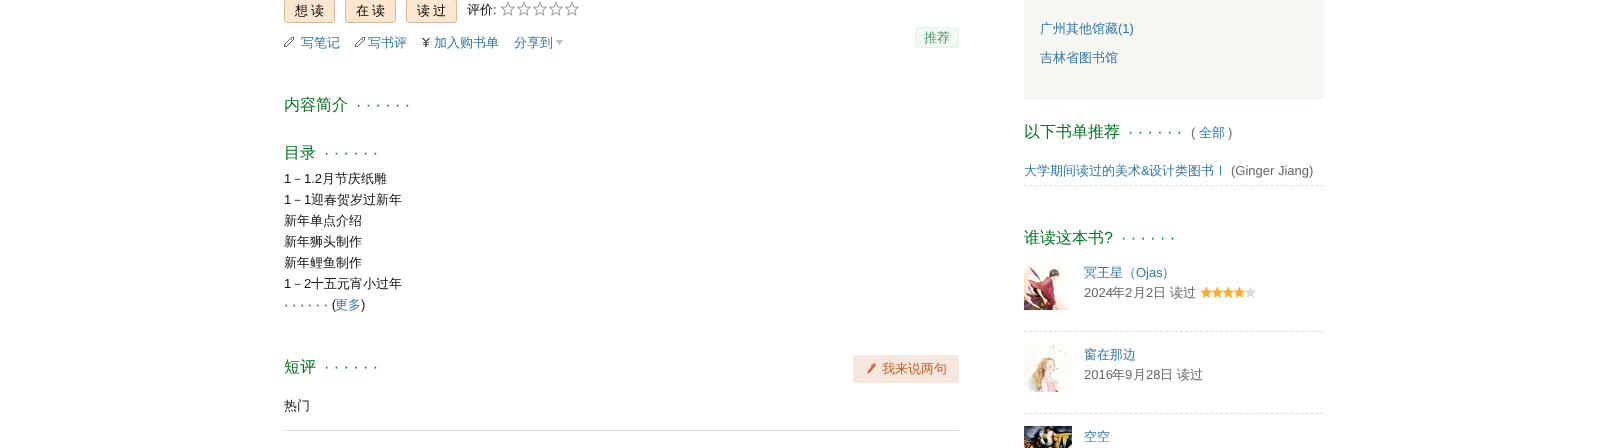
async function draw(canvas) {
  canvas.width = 1607
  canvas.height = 448
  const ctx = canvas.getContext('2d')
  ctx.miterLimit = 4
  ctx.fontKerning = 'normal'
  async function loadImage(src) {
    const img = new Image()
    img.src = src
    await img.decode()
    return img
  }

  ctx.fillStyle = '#fff'
  ctx.fillRect(0, 0, 1607, 448)
  ctx.fillStyle = '#ffe6ce'
  ctx.beginPath()
  ctx.roundRect(284.5, -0.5, 50, 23, 2.5)
  ctx.fill()
  ctx.strokeStyle = '#d6b79d'
  ctx.stroke()
  ctx.letterSpacing = '3px'
  ctx.font = '500 13px WenQuanYi Zen Hei'
  ctx.fillStyle = '#000'
  ctx.fillText('想读', 295, 15)
  ctx.fillStyle = '#ffe6ce'
  ctx.beginPath()
  ctx.roundRect(345.5, -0.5, 50, 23, 2.5)
  ctx.fill()
  ctx.stroke()
  ctx.fillStyle = '#000'
  ctx.fillText('在读', 356, 15)
  ctx.fillStyle = '#ffe6ce'
  ctx.beginPath()
  ctx.roundRect(406.5, -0.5, 50, 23, 2.5)
  ctx.fill()
  ctx.stroke()
  ctx.fillStyle = '#000'
  ctx.fillText('读过', 417, 15)
  ctx.letterSpacing = '0px'
  ctx.fillStyle = '#111'
  ctx.fillText('评价', 467, 14)
  ctx.font = '13px Liberation Sans'
  ctx.fillText(':', 493, 14)
  ctx.drawImage(await loadImage('image0.png'), 500, 1, 15, 15)
  ctx.drawImage(await loadImage('image0.png'), 516, 1, 15, 15)
  ctx.drawImage(await loadImage('image0.png'), 532, 1, 15, 15)
  ctx.drawImage(await loadImage('image0.png'), 548, 1, 15, 15)
  ctx.drawImage(await loadImage('image0.png'), 564, 1, 15, 15)
  ctx.drawImage(await loadImage('image1.png'), 284, 37, 10, 10)
  ctx.font = '500 13px WenQuanYi Zen Hei'
  ctx.fillStyle = '#37a'
  ctx.fillText('写笔记', 301, 47)
  ctx.drawImage(await loadImage('image1.png'), 355, 37, 10, 10)
  ctx.fillText('写书评', 368, 47)
  ctx.drawImage(await loadImage('image2.png'), 422, 38, 8, 9)
  ctx.fillText('加入购书单', 434, 47)
  ctx.fillText('分享到', 514, 47)
  ctx.drawImage(await loadImage('image3.png'), 556, 40, 7, 5)
  ctx.fillStyle = '#f2f8f2'
  ctx.beginPath()
  ctx.roundRect(915.5, 27.5, 43, 20, 2.5)
  ctx.fill()
  ctx.strokeStyle = '#e3f1ed'
  ctx.stroke()
  ctx.fillStyle = '#4f946e'
  ctx.fillText('推荐', 924, 42)
  ctx.font = '500 16px WenQuanYi Zen Hei'
  ctx.fillStyle = '#072'
  ctx.fillText('内容简介', 284, 110)
  ctx.font = '16px Liberation Sans'
  ctx.fillText('· · · · · ·', 356, 110)
  ctx.font = '500 16px WenQuanYi Zen Hei'
  ctx.fillText('目录', 284, 158)
  ctx.font = '16px Liberation Sans'
  ctx.fillText('· · · · · ·', 324, 158)
  ctx.font = '13px Liberation Sans'
  ctx.fillStyle = '#111'
  ctx.fillText('1', 284, 183)
  ctx.font = '500 13px WenQuanYi Zen Hei'
  ctx.fillText('－', 291, 183)
  ctx.font = '13px Liberation Sans'
  ctx.fillText('1.2', 304, 183)
  ctx.font = '500 13px WenQuanYi Zen Hei'
  ctx.fillText('月节庆纸雕', 322, 183)
  ctx.font = '13px Liberation Sans'
  ctx.fillText('1', 284, 204)
  ctx.font = '500 13px WenQuanYi Zen Hei'
  ctx.fillText('－', 291, 204)
  ctx.font = '13px Liberation Sans'
  ctx.fillText('1', 304, 204)
  ctx.font = '500 13px WenQuanYi Zen Hei'
  ctx.fillText('迎春贺岁过新年', 311, 204)
  ctx.fillText('新年单点介绍', 284, 225)
  ctx.fillText('新年狮头制作', 284, 246)
  ctx.fillText('新年鲤鱼制作', 284, 267)
  ctx.font = '13px Liberation Sans'
  ctx.fillText('1', 284, 288)
  ctx.font = '500 13px WenQuanYi Zen Hei'
  ctx.fillText('－', 291, 288)
  ctx.font = '13px Liberation Sans'
  ctx.fillText('2', 304, 288)
  ctx.font = '500 13px WenQuanYi Zen Hei'
  ctx.fillText('十五元宵小过年', 311, 288)
  ctx.font = '13px Liberation Sans'
  ctx.fillText('· · · · · · (', 284, 309)
  ctx.font = '500 13px WenQuanYi Zen Hei'
  ctx.fillStyle = '#37a'
  ctx.fillText('更多', 335, 309)
  ctx.font = '13px Liberation Sans'
  ctx.fillStyle = '#111'
  ctx.fillText(')', 361, 309)
  ctx.font = '500 16px WenQuanYi Zen Hei'
  ctx.fillStyle = '#072'
  ctx.fillText('短评', 284, 372)
  ctx.font = '16px Liberation Sans'
  ctx.fillText('· · · · · ·', 324, 372)
  ctx.fillStyle = '#f6e7de'
  ctx.beginPath()
  ctx.roundRect(853, 355, 106, 28, 2)
  ctx.fill()
  ctx.drawImage(await loadImage('image4.png'), 867, 363, 9, 11)
  ctx.font = '500 13px WenQuanYi Zen Hei'
  ctx.fillStyle = '#c65e24'
  ctx.fillText('我来说两句', 882, 373)
  ctx.fillStyle = '#111'
  ctx.fillText('热门', 284, 410)
  ctx.fillStyle = '#ddd'
  ctx.beginPath()
  ctx.roundRect(284, 430, 675, 1, 0.5)
  ctx.fill()
  ctx.fillStyle = '#f6f6f2'
  ctx.fillRect(1024, 0, 300, 100)
  ctx.fillStyle = '#37a'
  ctx.fillText('广州其他馆藏', 1040, 33)
  ctx.font = '13px Liberation Sans'
  ctx.fillText('(1)', 1118, 33)
  ctx.font = '500 13px WenQuanYi Zen Hei'
  ctx.fillText('吉林省图书馆', 1040, 62)
  ctx.font = '500 16px WenQuanYi Zen Hei'
  ctx.fillStyle = '#072'
  ctx.fillText('以下书单推荐', 1024, 137)
  ctx.font = '16px Liberation Sans'
  ctx.fillText('· · · · · ·', 1128, 137)
  ctx.font = '13px Liberation Sans'
  ctx.fillStyle = '#666'
  ctx.fillText('(', 1191, 137)
  ctx.font = '500 13px WenQuanYi Zen Hei'
  ctx.fillStyle = '#37a'
  ctx.fillText('全部', 1199, 137)
  ctx.font = '13px Liberation Sans'
  ctx.fillStyle = '#666'
  ctx.fillText(')', 1228, 137)
  ctx.beginPath()
  ctx.moveTo(1024, 185.5)
  ctx.lineTo(1324, 185.5)
  ctx.strokeStyle = '#ddd'
  ctx.setLineDash([3, 2.03])
  ctx.stroke()
  ctx.font = '500 13px WenQuanYi Zen Hei'
  ctx.fillStyle = '#37a'
  ctx.fillText('大学期间读过的美术', 1024, 175)
  ctx.font = '13px Liberation Sans'
  ctx.fillText('&', 1141, 175)
  ctx.font = '500 13px WenQuanYi Zen Hei'
  ctx.fillText('设计类图书Ⅰ', 1149, 175)
  ctx.font = '13px Liberation Sans'
  ctx.fillStyle = '#666'
  ctx.fillText('(Ginger Jiang)', 1231, 175)
  ctx.font = '500 16px WenQuanYi Zen Hei'
  ctx.fillStyle = '#072'
  ctx.fillText('谁读这本书', 1024, 243)
  ctx.font = '16px Liberation Sans'
  ctx.fillText('?', 1104, 243)
  ctx.fillText('· · · · · ·', 1121, 243)
  ctx.drawImage(await loadImage('image5.png'), 1024, 262, 48, 48)
  ctx.font = '500 13px WenQuanYi Zen Hei'
  ctx.fillStyle = '#37a'
  ctx.fillText('冥王星（', 1084, 277)
  ctx.font = '13px Liberation Sans'
  ctx.fillText('Ojas', 1136, 277)
  ctx.font = '500 13px WenQuanYi Zen Hei'
  ctx.fillText('）', 1162, 277)
  ctx.font = '13px Liberation Sans'
  ctx.fillStyle = '#666'
  ctx.fillText('2024', 1084, 297)
  ctx.font = '500 13px WenQuanYi Zen Hei'
  ctx.fillText('年', 1112, 297)
  ctx.font = '13px Liberation Sans'
  ctx.fillText('2', 1125, 297)
  ctx.font = '500 13px WenQuanYi Zen Hei'
  ctx.fillText('月', 1133, 297)
  ctx.font = '13px Liberation Sans'
  ctx.fillText('2', 1146, 297)
  ctx.font = '500 13px WenQuanYi Zen Hei'
  ctx.fillText('日 读过', 1153, 297)
  ctx.drawImage(await loadImage('image6.png'), 1201, 287, 55, 11)
  ctx.beginPath()
  ctx.moveTo(1024, 331.5)
  ctx.lineTo(1324, 331.5)
  ctx.stroke()
  ctx.drawImage(await loadImage('image7.png'), 1024, 344, 48, 48)
  ctx.fillStyle = '#37a'
  ctx.fillText('窗在那边', 1084, 359)
  ctx.font = '13px Liberation Sans'
  ctx.fillStyle = '#666'
  ctx.fillText('2016', 1084, 379)
  ctx.font = '500 13px WenQuanYi Zen Hei'
  ctx.fillText('年', 1112, 379)
  ctx.font = '13px Liberation Sans'
  ctx.fillText('9', 1125, 379)
  ctx.font = '500 13px WenQuanYi Zen Hei'
  ctx.fillText('月', 1133, 379)
  ctx.font = '13px Liberation Sans'
  ctx.fillText('28', 1146, 379)
  ctx.font = '500 13px WenQuanYi Zen Hei'
  ctx.fillText('日 读过', 1160, 379)
  ctx.beginPath()
  ctx.moveTo(1024, 413.5)
  ctx.lineTo(1324, 413.5)
  ctx.stroke()
  ctx.drawImage(await loadImage('image8.png'), 1024, 426, 48, 22)
  ctx.fillStyle = '#37a'
  ctx.fillText('空空', 1084, 441)
}

draw(document.querySelector('canvas'))
